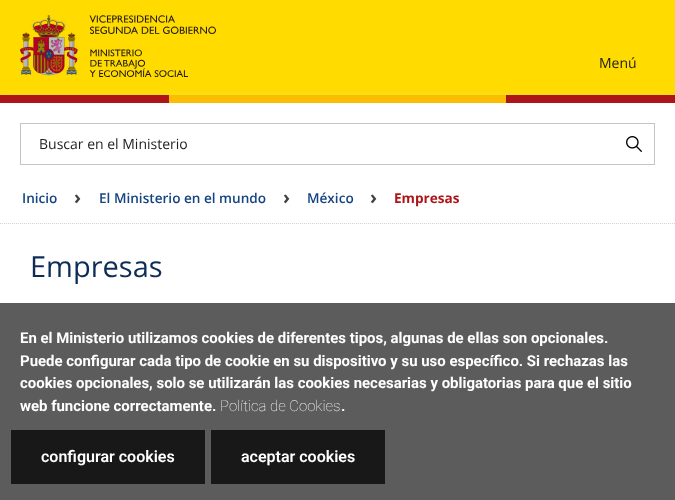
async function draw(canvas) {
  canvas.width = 675
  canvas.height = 500
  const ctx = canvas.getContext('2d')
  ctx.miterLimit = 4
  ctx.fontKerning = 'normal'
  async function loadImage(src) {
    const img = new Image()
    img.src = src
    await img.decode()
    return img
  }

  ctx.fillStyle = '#fff'
  ctx.fillRect(0, 0, 675, 500)
  ctx.fillStyle = '#ffdb00'
  ctx.fillRect(0, 0, 675, 95)
  ctx.drawImage(await loadImage('image0.png'), 20, 15, 196, 62)
  ctx.font = '14px Open Sans'
  ctx.fillStyle = '#1d1d1b'
  ctx.fillText('Menú', 599, 68)
  ctx.fillStyle = '#fff'
  ctx.filter = 'blur(7.5px)'
  ctx.beginPath()
  ctx.rect(0, 105, 675, 8)
  ctx.fill()
  ctx.filter = 'none'
  ctx.fillStyle = '#ad1519'
  ctx.fillRect(0, 95, 169, 8)
  ctx.fillStyle = '#fabd00'
  ctx.fillRect(169, 95, 337, 8)
  ctx.fillStyle = '#ad1519'
  ctx.fillRect(506, 95, 169, 8)
  ctx.strokeStyle = '#c4c4c4'
  ctx.strokeRect(20.5, 123.5, 634, 41)
  ctx.fillStyle = '#1d1d1b'
  ctx.fillText('Buscar en el Ministerio', 39, 149)
  ctx.drawImage(await loadImage('image1.png'), 626, 136, 16, 16)
  ctx.beginPath()
  ctx.moveTo(0, 223.5)
  ctx.lineTo(675, 223.5)
  ctx.strokeStyle = '#d3d3d3'
  ctx.setLineDash([1, 1])
  ctx.stroke()
  ctx.font = '600 13.6px Open Sans'
  ctx.fillStyle = '#154481'
  ctx.fillText('Inicio', 22, 203)
  ctx.font = 'bold 19px Open Sans'
  ctx.fillStyle = '#444'
  ctx.fillText('›', 74, 204)
  ctx.font = '600 13.6px Open Sans'
  ctx.fillStyle = '#154481'
  ctx.fillText('El Ministerio en el mundo', 99, 203)
  ctx.font = 'bold 19px Open Sans'
  ctx.fillStyle = '#444'
  ctx.fillText('›', 283, 204)
  ctx.font = '600 13.6px Open Sans'
  ctx.fillStyle = '#154481'
  ctx.fillText('México', 307, 203)
  ctx.font = 'bold 19px Open Sans'
  ctx.fillStyle = '#444'
  ctx.fillText('›', 370, 204)
  ctx.font = 'bold 13.6px Open Sans'
  ctx.fillStyle = '#ad1519'
  ctx.fillText('Empresas', 394, 203)
  ctx.font = '29px Open Sans'
  ctx.fillStyle = '#0d2d57'
  ctx.fillText('Empresas', 30, 277)
  ctx.fillStyle = '#5c5c5c'
  ctx.fillRect(0, 303, 675, 197)
  ctx.font = 'bold 14.95px Roboto'
  ctx.fillStyle = '#fff'
  ctx.fillText('En el Ministerio utilizamos cookies de diferentes tipos, algunas de ellas son opcionales.', 20, 343)
  ctx.fillText('Puede configurar cada tipo de cookie en su dispositivo y su uso específico. Si rechazas las', 20, 366)
  ctx.fillText('cookies opcionales, solo se utilizarán las cookies necesarias y obligatorias para que el sitio', 20, 388)
  ctx.fillText('web funcione correctamente.', 20, 411)
  ctx.font = '100 14.95px Roboto'
  ctx.fillText('Política de Cookies', 220, 411)
  ctx.font = 'bold 14.95px Roboto'
  ctx.fillText('.', 341, 411)
  ctx.fillStyle = '#181818'
  ctx.fillRect(11, 430, 194, 54)
  ctx.font = '600 16px Roboto'
  ctx.fillStyle = '#fff'
  ctx.fillText('configurar cookies', 41, 462)
  ctx.fillStyle = '#181818'
  ctx.fillRect(211, 430, 174, 54)
  ctx.fillStyle = '#fff'
  ctx.fillText('aceptar cookies', 241, 462)
}

draw(document.querySelector('canvas'))
